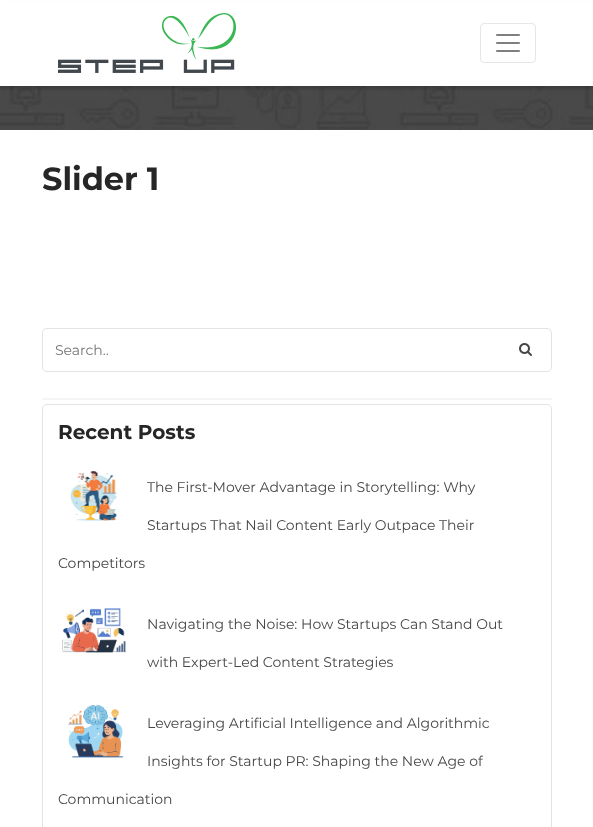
async function draw(canvas) {
  canvas.width = 593
  canvas.height = 827
  const ctx = canvas.getContext('2d')
  ctx.miterLimit = 4
  ctx.fontKerning = 'normal'
  async function loadImage(src) {
    const img = new Image()
    img.src = src
    await img.decode()
    return img
  }

  ctx.fillStyle = '#fff'
  ctx.fillRect(0, 0, 593, 827)
  ctx.drawImage(await loadImage('image2.png'), 0, 86, 593, 44)
  ctx.fillStyle = '#00000029'
  ctx.filter = 'blur(1.5px)'
  ctx.beginPath()
  ctx.rect(0, 3, 593, 86)
  ctx.fill()
  ctx.filter = 'none'
  ctx.fillStyle = '#fff'
  ctx.fillRect(0, 1, 593, 85)
  ctx.drawImage(await loadImage('image0.png'), 58, 13, 178, 60)
  ctx.beginPath()
  ctx.roundRect(480.5, 23.5, 55, 39, 3.5)
  ctx.strokeStyle = '#e6e6e6'
  ctx.stroke()
  ctx.drawImage(await loadImage('image1.png'), 496, 34, 24, 18)
  ctx.font = 'bold 32px Montserrat'
  ctx.fillStyle = '#262626'
  ctx.fillText('Slider 1', 42, 190)
  ctx.beginPath()
  ctx.roundRect(42.5, 328.5, 509, 43, 4.5)
  ctx.strokeStyle = '#e3e3e3'
  ctx.stroke()
  ctx.font = '14px Montserrat'
  ctx.fillStyle = '#757575'
  ctx.fillText('Search..', 55, 355)
  ctx.drawImage(await loadImage('image3.png'), 519, 343, 13, 13)
  ctx.beginPath()
  ctx.roundRect(42.5, 404.5, 509, 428, 4.5)
  ctx.stroke()
  ctx.font = 'bold 20px Montserrat'
  ctx.fillStyle = '#262626'
  ctx.fillText('Recent Posts', 58, 439)
  ctx.drawImage(await loadImage('image4.png'), 70, 470, 48, 51)
  ctx.font = '14px Montserrat'
  ctx.fillStyle = '#464646'
  ctx.fillText('The First-Mover Advantage in Storytelling: Why', 147, 492)
  ctx.fillText('Startups That Nail Content Early Outpace Their', 147, 530)
  ctx.fillText('Competitors', 58, 568)
  ctx.drawImage(await loadImage('image5.png'), 62, 608, 65, 45)
  ctx.fillText('Navigating the Noise: How Startups Can Stand Out', 147, 629)
  ctx.fillText('with Expert-Led Content Strategies', 147, 667)
  ctx.drawImage(await loadImage('image6.png'), 68, 704, 56, 54)
  ctx.fillText('Leveraging Artificial Intelligence and Algorithmic', 147, 728)
  ctx.fillText('Insights for Startup PR: Shaping the New Age of', 147, 766)
  ctx.fillText('Communication', 58, 804)
  ctx.fillStyle = '#f5f5f5'
  ctx.fillRect(42, 398, 510, 2)
}

draw(document.querySelector('canvas'))
